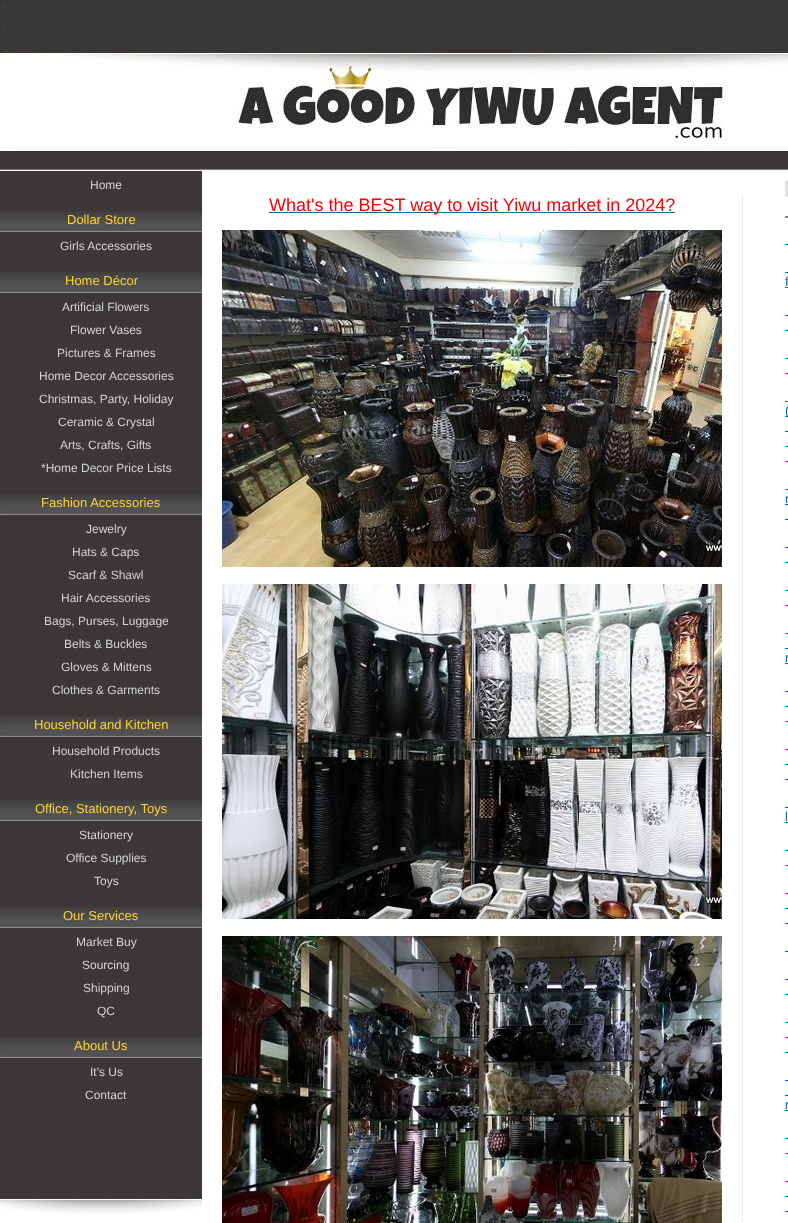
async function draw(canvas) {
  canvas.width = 788
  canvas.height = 1223
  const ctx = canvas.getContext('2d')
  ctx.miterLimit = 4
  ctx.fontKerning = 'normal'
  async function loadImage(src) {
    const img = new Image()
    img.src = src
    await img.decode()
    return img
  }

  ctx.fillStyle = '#fff'
  ctx.fillRect(0, 0, 788, 1223)
  ctx.drawImage(await loadImage('image0.png'), 0, 152, 788, 19)
  ctx.drawImage(await loadImage('image1.png'), 0, 0, 788, 152)
  ctx.fillStyle = '#3c3837'
  ctx.fillRect(0, 171, 202, 1026)
  ctx.drawImage(await loadImage('image2.png'), 0, 1197, 202, 26)
  ctx.font = '12px Liberation Sans'
  ctx.fillStyle = '#d3d3d3'
  ctx.fillText('Home', 90, 189)
  ctx.drawImage(await loadImage('image3.png'), 0, 211, 202, 21)
  ctx.font = '13px Liberation Sans'
  ctx.fillStyle = '#fcd427'
  ctx.fillText('Dollar Store', 67, 224)
  ctx.font = '12px Liberation Sans'
  ctx.fillStyle = '#d3d3d3'
  ctx.fillText('Girls Accessories', 60, 250)
  ctx.drawImage(await loadImage('image3.png'), 0, 272, 202, 21)
  ctx.font = '13px Liberation Sans'
  ctx.fillStyle = '#fcd427'
  ctx.fillText('Home Décor', 65, 285)
  ctx.font = '12px Liberation Sans'
  ctx.fillStyle = '#d3d3d3'
  ctx.fillText('Artificial Flowers', 62, 311)
  ctx.fillText('Flower Vases', 70, 334)
  ctx.fillText('Pictures & Frames', 57, 357)
  ctx.fillText('Home Decor Accessories', 39, 380)
  ctx.fillText('Christmas, Party, Holiday', 39, 403)
  ctx.fillText('Ceramic & Crystal', 58, 426)
  ctx.fillText('Arts, Crafts, Gifts', 60, 449)
  ctx.fillText('*Home Decor Price Lists', 41, 472)
  ctx.drawImage(await loadImage('image3.png'), 0, 494, 202, 21)
  ctx.font = '13px Liberation Sans'
  ctx.fillStyle = '#fcd427'
  ctx.fillText('Fashion Accessories', 41, 507)
  ctx.font = '12px Liberation Sans'
  ctx.fillStyle = '#d3d3d3'
  ctx.fillText('Jewelry', 86, 533)
  ctx.fillText('Hats & Caps', 72, 556)
  ctx.fillText('Scarf & Shawl', 68, 579)
  ctx.fillText('Hair Accessories', 61, 602)
  ctx.fillText('Bags, Purses, Luggage', 44, 625)
  ctx.fillText('Belts & Buckles', 64, 648)
  ctx.fillText('Gloves & Mittens', 61, 671)
  ctx.fillText('Clothes & Garments', 52, 694)
  ctx.drawImage(await loadImage('image3.png'), 0, 716, 202, 21)
  ctx.font = '13px Liberation Sans'
  ctx.fillStyle = '#fcd427'
  ctx.fillText('Household and Kitchen', 34, 729)
  ctx.font = '12px Liberation Sans'
  ctx.fillStyle = '#d3d3d3'
  ctx.fillText('Household Products', 52, 755)
  ctx.fillText('Kitchen Items', 70, 778)
  ctx.drawImage(await loadImage('image3.png'), 0, 800, 202, 21)
  ctx.font = '13px Liberation Sans'
  ctx.fillStyle = '#fcd427'
  ctx.fillText('Office, Stationery, Toys', 35, 813)
  ctx.font = '12px Liberation Sans'
  ctx.fillStyle = '#d3d3d3'
  ctx.fillText('Stationery', 79, 839)
  ctx.fillText('Office Supplies', 66, 862)
  ctx.fillText('Toys', 94, 885)
  ctx.drawImage(await loadImage('image3.png'), 0, 907, 202, 21)
  ctx.font = '13px Liberation Sans'
  ctx.fillStyle = '#fcd427'
  ctx.fillText('Our Services', 63, 920)
  ctx.font = '12px Liberation Sans'
  ctx.fillStyle = '#d3d3d3'
  ctx.fillText('Market Buy', 76, 946)
  ctx.fillText('Sourcing', 82, 969)
  ctx.fillText('Shipping', 83, 992)
  ctx.fillText('QC', 97, 1015)
  ctx.drawImage(await loadImage('image3.png'), 0, 1037, 202, 21)
  ctx.font = '13px Liberation Sans'
  ctx.fillStyle = '#fcd427'
  ctx.fillText('About Us', 74, 1050)
  ctx.font = '12px Liberation Sans'
  ctx.fillStyle = '#d3d3d3'
  ctx.fillText('It\'s Us', 90, 1076)
  ctx.fillText('Contact', 85, 1099)
  ctx.beginPath()
  ctx.moveTo(742.5, 195)
  ctx.lineTo(742.5, 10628)
  ctx.strokeStyle = '#d3d3d3'
  ctx.setLineDash([1, 1])
  ctx.stroke()
  ctx.fillStyle = '#006ea6'
  ctx.fillRect(269, 212, 406, 1)
  ctx.font = '18px Liberation Sans'
  ctx.fillStyle = '#f00'
  ctx.fillText('What\'s the BEST way to visit Yiwu market in 2024?', 269, 211)
  ctx.drawImage(await loadImage('image4.png'), 222, 230, 500, 337)
  ctx.drawImage(await loadImage('image5.png'), 222, 584, 500, 335)
  ctx.drawImage(await loadImage('image6.png'), 222, 936, 500, 287)
  ctx.fillStyle = '#e1e1e1'
  ctx.fillRect(785, 181, 3, 16)
  ctx.fillStyle = '#808080'
  ctx.fillRect(785, 216, 3, 2)
  ctx.fillStyle = '#006ea6'
  ctx.fillRect(785, 244, 3, 1)
  ctx.font = '13px Liberation Sans'
  ctx.fillText('f', 785, 286)
  ctx.fillRect(785, 272, 3, 1)
  ctx.fillRect(785, 287, 3, 1)
  ctx.fillRect(785, 315, 3, 1)
  ctx.fillRect(785, 330, 3, 1)
  ctx.fillRect(785, 358, 3, 1)
  ctx.fillRect(785, 373, 3, 1)
  ctx.fillRect(785, 416, 3, 1)
  ctx.fillText('(', 785, 415)
  ctx.fillRect(785, 401, 3, 1)
  ctx.fillRect(785, 431, 3, 1)
  ctx.fillRect(785, 446, 3, 1)
  ctx.fillRect(785, 461, 3, 1)
  ctx.fillText('r', 785, 503)
  ctx.fillRect(785, 489, 3, 1)
  ctx.fillRect(785, 504, 3, 1)
  ctx.fillRect(785, 519, 3, 1)
  ctx.fillRect(785, 547, 3, 1)
  ctx.fillRect(785, 562, 3, 1)
  ctx.fillRect(785, 590, 3, 1)
  ctx.fillRect(785, 605, 3, 1)
  ctx.fillText('r', 785, 662)
  ctx.fillRect(785, 633, 3, 1)
  ctx.fillRect(785, 648, 3, 1)
  ctx.fillRect(785, 663, 3, 1)
  ctx.fillRect(785, 691, 3, 1)
  ctx.fillRect(785, 706, 3, 1)
  ctx.fillRect(785, 721, 3, 1)
  ctx.fillRect(785, 749, 3, 1)
  ctx.fillRect(785, 764, 3, 1)
  ctx.fillRect(785, 779, 3, 1)
  ctx.fillText('l', 785, 821)
  ctx.fillRect(785, 807, 3, 1)
  ctx.fillRect(785, 822, 3, 1)
  ctx.fillRect(785, 850, 3, 1)
  ctx.fillRect(785, 865, 3, 1)
  ctx.fillRect(785, 893, 3, 1)
  ctx.fillRect(785, 908, 3, 1)
  ctx.fillRect(785, 923, 3, 1)
  ctx.fillRect(785, 951, 3, 1)
  ctx.fillRect(785, 979, 3, 1)
  ctx.fillRect(785, 994, 3, 1)
  ctx.fillRect(785, 1022, 3, 1)
  ctx.fillRect(785, 1037, 3, 1)
  ctx.fillRect(785, 1052, 3, 1)
  ctx.fillText('r', 785, 1109)
  ctx.fillRect(785, 1080, 3, 1)
  ctx.fillRect(785, 1095, 3, 1)
  ctx.fillRect(785, 1110, 3, 1)
  ctx.fillRect(785, 1138, 3, 1)
  ctx.fillRect(785, 1153, 3, 1)
  ctx.fillRect(785, 1181, 3, 1)
  ctx.fillRect(785, 1196, 3, 1)
  ctx.fillRect(785, 1211, 3, 1)
}

draw(document.querySelector('canvas'))
